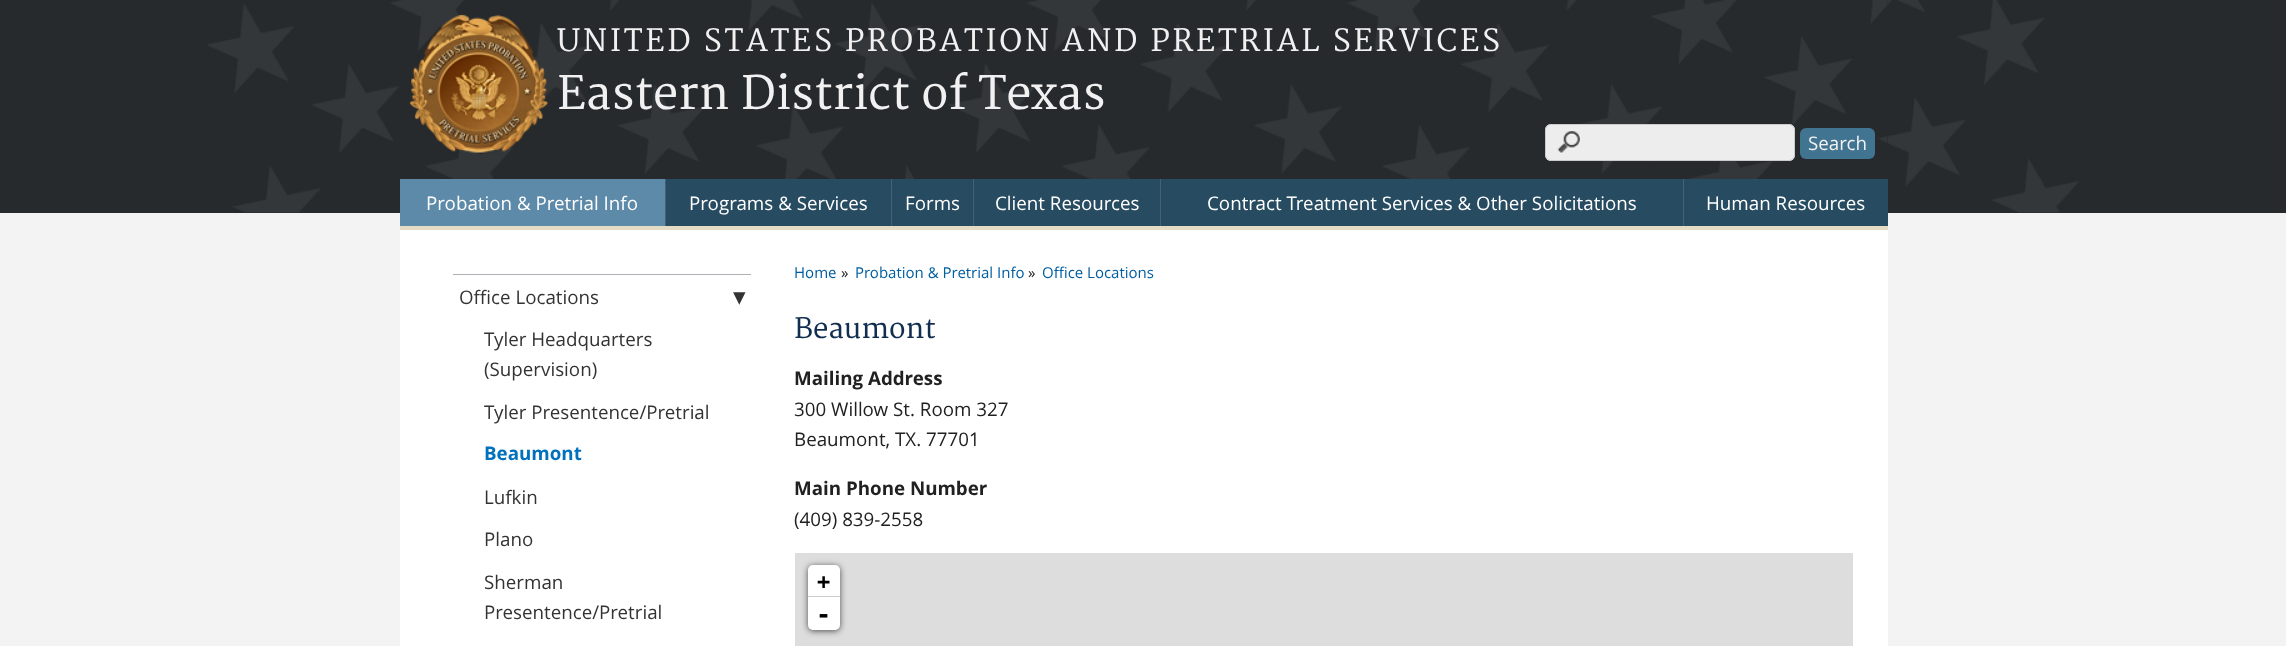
async function draw(canvas) {
  canvas.width = 2286
  canvas.height = 646
  const ctx = canvas.getContext('2d')
  ctx.miterLimit = 4
  ctx.fontKerning = 'normal'
  async function loadImage(src) {
    const img = new Image()
    img.src = src
    await img.decode()
    return img
  }

  ctx.fillStyle = '#f3f3f3'
  ctx.fillRect(0, 0, 2286, 646)
  ctx.fillStyle = '#262a2d'
  ctx.fillRect(0, 0, 2286, 213)
  ctx.drawImage(await loadImage('image0.png'), 207, 0, 1872, 213)
  ctx.fillStyle = '#fff'
  ctx.fillRect(400, 230, 1488, 416)
  ctx.fillStyle = '#262a2d'
  ctx.fillRect(400, 0, 1488, 179)
  ctx.drawImage(await loadImage('image1.png'), 400, 0, 1488, 179)
  ctx.drawImage(await loadImage('image2.png'), 409, 14, 139, 139)
  ctx.letterSpacing = '2.75px'
  ctx.font = '30px Merriweather'
  ctx.fillStyle = '#f1f1f1'
  ctx.fillText('UNITED STATES PROBATION AND PRETRIAL SERVICES', 557, 51)
  ctx.letterSpacing = '0px'
  ctx.font = '45px Merriweather'
  ctx.fillText('Eastern District of Texas', 557, 109)
  ctx.fillStyle = '#ededed'
  ctx.beginPath()
  ctx.roundRect(1545, 124, 250, 37, 6)
  ctx.fill()
  ctx.drawImage(await loadImage('image3.png'), 1557, 131, 23, 23)
  ctx.beginPath()
  ctx.roundRect(1545.5, 124.5, 249, 36, 5.5)
  ctx.strokeStyle = '#ccc'
  ctx.stroke()
  ctx.fillStyle = '#417491'
  ctx.beginPath()
  ctx.roundRect(1800, 128, 75, 31, 6)
  ctx.fill()
  ctx.font = '18.75px Open Sans'
  ctx.fillStyle = '#f1f1f1'
  ctx.fillText('Search', 1808, 150)
  ctx.fillStyle = '#274b61'
  ctx.fillRect(666, 179, 1222, 47)
  ctx.fillStyle = '#e4dcc5'
  ctx.fillRect(400, 226, 1488, 4)
  ctx.fillStyle = '#5d8aa8'
  ctx.fillRect(400, 179, 265, 47)
  ctx.fillStyle = '#446173'
  ctx.fillRect(665, 179, 1, 47)
  ctx.fillStyle = '#fff'
  ctx.fillText('Probation & Pretrial Info', 426, 210)
  ctx.fillStyle = '#446173'
  ctx.fillRect(891, 179, 1, 47)
  ctx.fillStyle = '#fff'
  ctx.fillText('Programs & Services', 689, 210)
  ctx.fillStyle = '#446173'
  ctx.fillRect(973, 179, 1, 47)
  ctx.fillStyle = '#fff'
  ctx.fillText('Forms', 905, 210)
  ctx.fillStyle = '#446173'
  ctx.fillRect(1160, 179, 1, 47)
  ctx.fillStyle = '#fff'
  ctx.fillText('Client Resources', 995, 210)
  ctx.fillStyle = '#446173'
  ctx.fillRect(1683, 179, 1, 47)
  ctx.fillStyle = '#fff'
  ctx.fillText('Contract Treatment Services & Other Solicitations', 1207, 210)
  ctx.fillText('Human Resources', 1706, 210)
  ctx.fillStyle = '#aeb0b5'
  ctx.fillRect(453, 274, 298, 1)
  ctx.fillStyle = '#333'
  ctx.fillText('Office Locations', 459, 304)
  ctx.font = '25px DejaVu Sans'
  ctx.fillText('▾', 733, 305)
  ctx.font = '18.75px Open Sans'
  ctx.fillText('Tyler Headquarters', 484, 346)
  ctx.fillText('(Supervision)', 484, 376)
  ctx.fillText('Tyler Presentence/Pretrial', 484, 419)
  ctx.font = 'bold 18.75px Open Sans'
  ctx.fillStyle = '#0071bc'
  ctx.fillText('Beaumont', 484, 460)
  ctx.font = '18.75px Open Sans'
  ctx.fillStyle = '#333'
  ctx.fillText('Lufkin', 484, 504)
  ctx.fillText('Plano', 484, 546)
  ctx.fillText('Sherman', 484, 589)
  ctx.fillText('Presentence/Pretrial', 484, 619)
  ctx.font = '15px Open Sans'
  ctx.fillStyle = '#005ea2'
  ctx.fillText('Home', 794, 278)
  ctx.fillStyle = '#212121'
  ctx.fillText('»', 841, 278)
  ctx.fillStyle = '#005ea2'
  ctx.fillText('Probation & Pretrial Info', 855, 278)
  ctx.fillStyle = '#212121'
  ctx.fillText('»', 1028, 278)
  ctx.fillStyle = '#005ea2'
  ctx.fillText('Office Locations', 1042, 278)
  ctx.font = '27.5px Merriweather'
  ctx.fillStyle = '#112e51'
  ctx.fillText('Beaumont', 794, 338)
  ctx.font = 'bold 18.75px Open Sans'
  ctx.fillStyle = '#212121'
  ctx.fillText('Mailing Address', 794, 385)
  ctx.font = '18.75px Open Sans'
  ctx.fillText('300 Willow St. Room 327', 794, 416)
  ctx.fillText('Beaumont, TX. 77701', 794, 446)
  ctx.font = 'bold 18.75px Open Sans'
  ctx.fillText('Main Phone Number', 794, 495)
  ctx.font = '18.75px Open Sans'
  ctx.fillText('(409) 839-2558', 794, 526)
  ctx.fillStyle = '#ddd'
  ctx.fillRect(795, 553, 1058, 93)
  ctx.fillStyle = '#000000a6'
  ctx.filter = 'blur(3px)'
  ctx.beginPath()
  ctx.roundRect(808, 566, 32, 65, 5)
  ctx.fill()
  ctx.filter = 'none'
  ctx.fillStyle = '#fff'
  ctx.beginPath()
  ctx.roundRect(808, 565, 32, 33, [5, 5, 0, 0])
  ctx.fill()
  ctx.fillStyle = '#ccc'
  ctx.fillRect(808, 596, 32, 1)
  ctx.font = 'bold 22px DejaVu Sans Mono'
  ctx.fillStyle = '#000'
  ctx.fillText('+', 817, 589)
  ctx.fillStyle = '#fff'
  ctx.beginPath()
  ctx.roundRect(808, 598, 32, 32, [0, 0, 5, 5])
  ctx.fill()
  ctx.font = 'bold 25px DejaVu Sans Mono'
  ctx.fillStyle = '#000'
  ctx.fillText('-', 816, 623)
}

draw(document.querySelector('canvas'))
